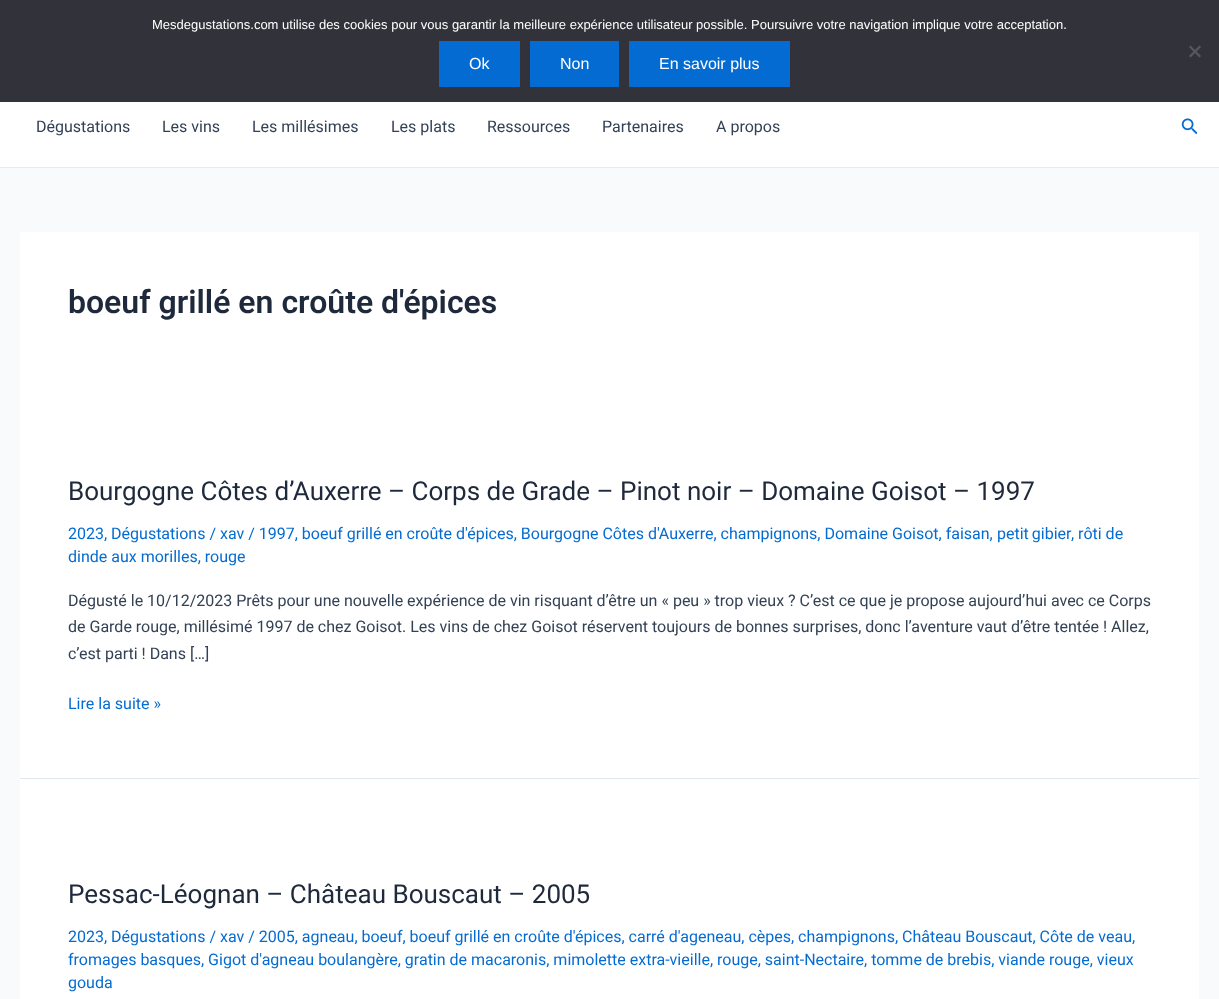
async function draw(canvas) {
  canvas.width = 1219
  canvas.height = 999
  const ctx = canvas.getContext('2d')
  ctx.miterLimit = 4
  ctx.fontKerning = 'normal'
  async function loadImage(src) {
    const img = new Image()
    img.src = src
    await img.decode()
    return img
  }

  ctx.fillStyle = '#f9fafb'
  ctx.fillRect(0, 0, 1219, 999)
  ctx.fillStyle = '#32323a'
  ctx.fillRect(0, 0, 1219, 102)
  ctx.font = '13px Liberation Sans'
  ctx.fillStyle = '#fff'
  ctx.fillText('Mesdegustations.com utilise des cookies pour vous garantir la meilleure expérience utilisateur possible. Poursuivre votre navigation implique votre acceptation.', 152, 29)
  ctx.fillStyle = '#59595d'
  ctx.beginPath()
  ctx.moveTo(1199.5, 45.5)
  ctx.lineTo(1201, 47)
  ctx.lineTo(1190.5, 57.5)
  ctx.lineTo(1189, 56)
  ctx.closePath()
  ctx.fill()
  ctx.beginPath()
  ctx.moveTo(1189, 47)
  ctx.lineTo(1190.5, 45.5)
  ctx.lineTo(1201, 56)
  ctx.lineTo(1199.5, 57.5)
  ctx.closePath()
  ctx.fill()
  ctx.fillStyle = '#046bd2'
  ctx.fillRect(439, 41, 81, 46)
  ctx.font = '16px Liberation Sans'
  ctx.fillStyle = '#fff'
  ctx.fillText('Ok', 469, 69)
  ctx.fillStyle = '#046bd2'
  ctx.fillRect(530, 41, 89, 46)
  ctx.fillStyle = '#fff'
  ctx.fillText('Non', 560, 69)
  ctx.fillStyle = '#046bd2'
  ctx.fillRect(629, 41, 161, 46)
  ctx.fillStyle = '#fff'
  ctx.fillText('En savoir plus', 659, 69)
  ctx.fillRect(0, 102, 1219, 65)
  ctx.fillStyle = '#eaeaea'
  ctx.fillRect(0, 167, 1219, 1)
  ctx.font = '16px Roboto'
  ctx.fillStyle = '#334155'
  ctx.fillText('Dégustations', 36, 132)
  ctx.fillText('Les vins', 162, 132)
  ctx.fillText('Les millésimes', 252, 132)
  ctx.fillText('Les plats', 391, 132)
  ctx.fillText('Ressources', 487, 132)
  ctx.fillText('Partenaires', 602, 132)
  ctx.fillText('A propos', 716, 132)
  ctx.drawImage(await loadImage('image0.png'), 1181, 118, 16, 17)
  ctx.fillStyle = '#fff'
  ctx.fillRect(20, 232, 1179, 546)
  ctx.font = '600 32px Roboto'
  ctx.fillStyle = '#1e293b'
  ctx.fillText('boeuf grillé en croûte d\'épices', 68, 313)
  ctx.fillStyle = '#e2e8f0'
  ctx.fillRect(20, 778, 1179, 1)
  ctx.font = '26px Roboto'
  ctx.fillStyle = '#1e293b'
  ctx.fillText('Bourgogne Côtes d’Auxerre – Corps de Grade – Pinot noir – Domaine Goisot – 1997', 68, 500)
  ctx.font = '16px Roboto'
  ctx.fillStyle = '#046bd2'
  ctx.fillText('2023, Dégustations / xav / 1997, boeuf grillé en croûte d\'épices, Bourgogne Côtes d\'Auxerre, champignons, Domaine Goisot, faisan,', 68, 539)
  ctx.wordSpacing = '-1px'
  ctx.fillText('petit gibier', 997, 539)
  ctx.wordSpacing = '0px'
  ctx.fillText(', rôti de', 1071, 539)
  ctx.fillText('dinde aux morilles, rouge', 68, 562)
  ctx.fillStyle = '#334155'
  ctx.fillText('Dégusté le 10/12/2023 Prêts pour une nouvelle expérience de vin risquant d’être un « peu » trop vieux ? C’est ce que je propose aujourd’hui avec ce Corps', 68, 606)
  ctx.fillText('de Garde rouge, millésimé 1997 de chez Goisot. Les vins de chez Goisot réservent toujours de bonnes surprises, donc l’aventure vaut d’être tentée ! Allez,', 68, 632)
  ctx.fillText('c’est parti ! Dans […]', 68, 659)
  ctx.fillStyle = '#046bd2'
  ctx.fillText('Lire la suite »', 68, 709)
  ctx.fillStyle = '#fff'
  ctx.fillRect(20, 779, 1179, 220)
  ctx.font = '26px Roboto'
  ctx.fillStyle = '#1e293b'
  ctx.fillText('Pessac-Léognan – Château Bouscaut – 2005', 68, 903)
  ctx.font = '16px Roboto'
  ctx.fillStyle = '#046bd2'
  ctx.fillText('2023, Dégustations / xav / 2005, agneau, boeuf, boeuf grillé en croûte d\'épices, carré d\'ageneau, cèpes, champignons, Château Bouscaut, Côte de veau,', 68, 942)
  ctx.fillText('fromages basques, Gigot d\'agneau boulangère, gratin de macaronis, mimolette extra-vieille, rouge, saint-Nectaire, tomme de brebis, viande rouge, vieux', 68, 965)
  ctx.fillText('gouda', 68, 988)
}

draw(document.querySelector('canvas'))
